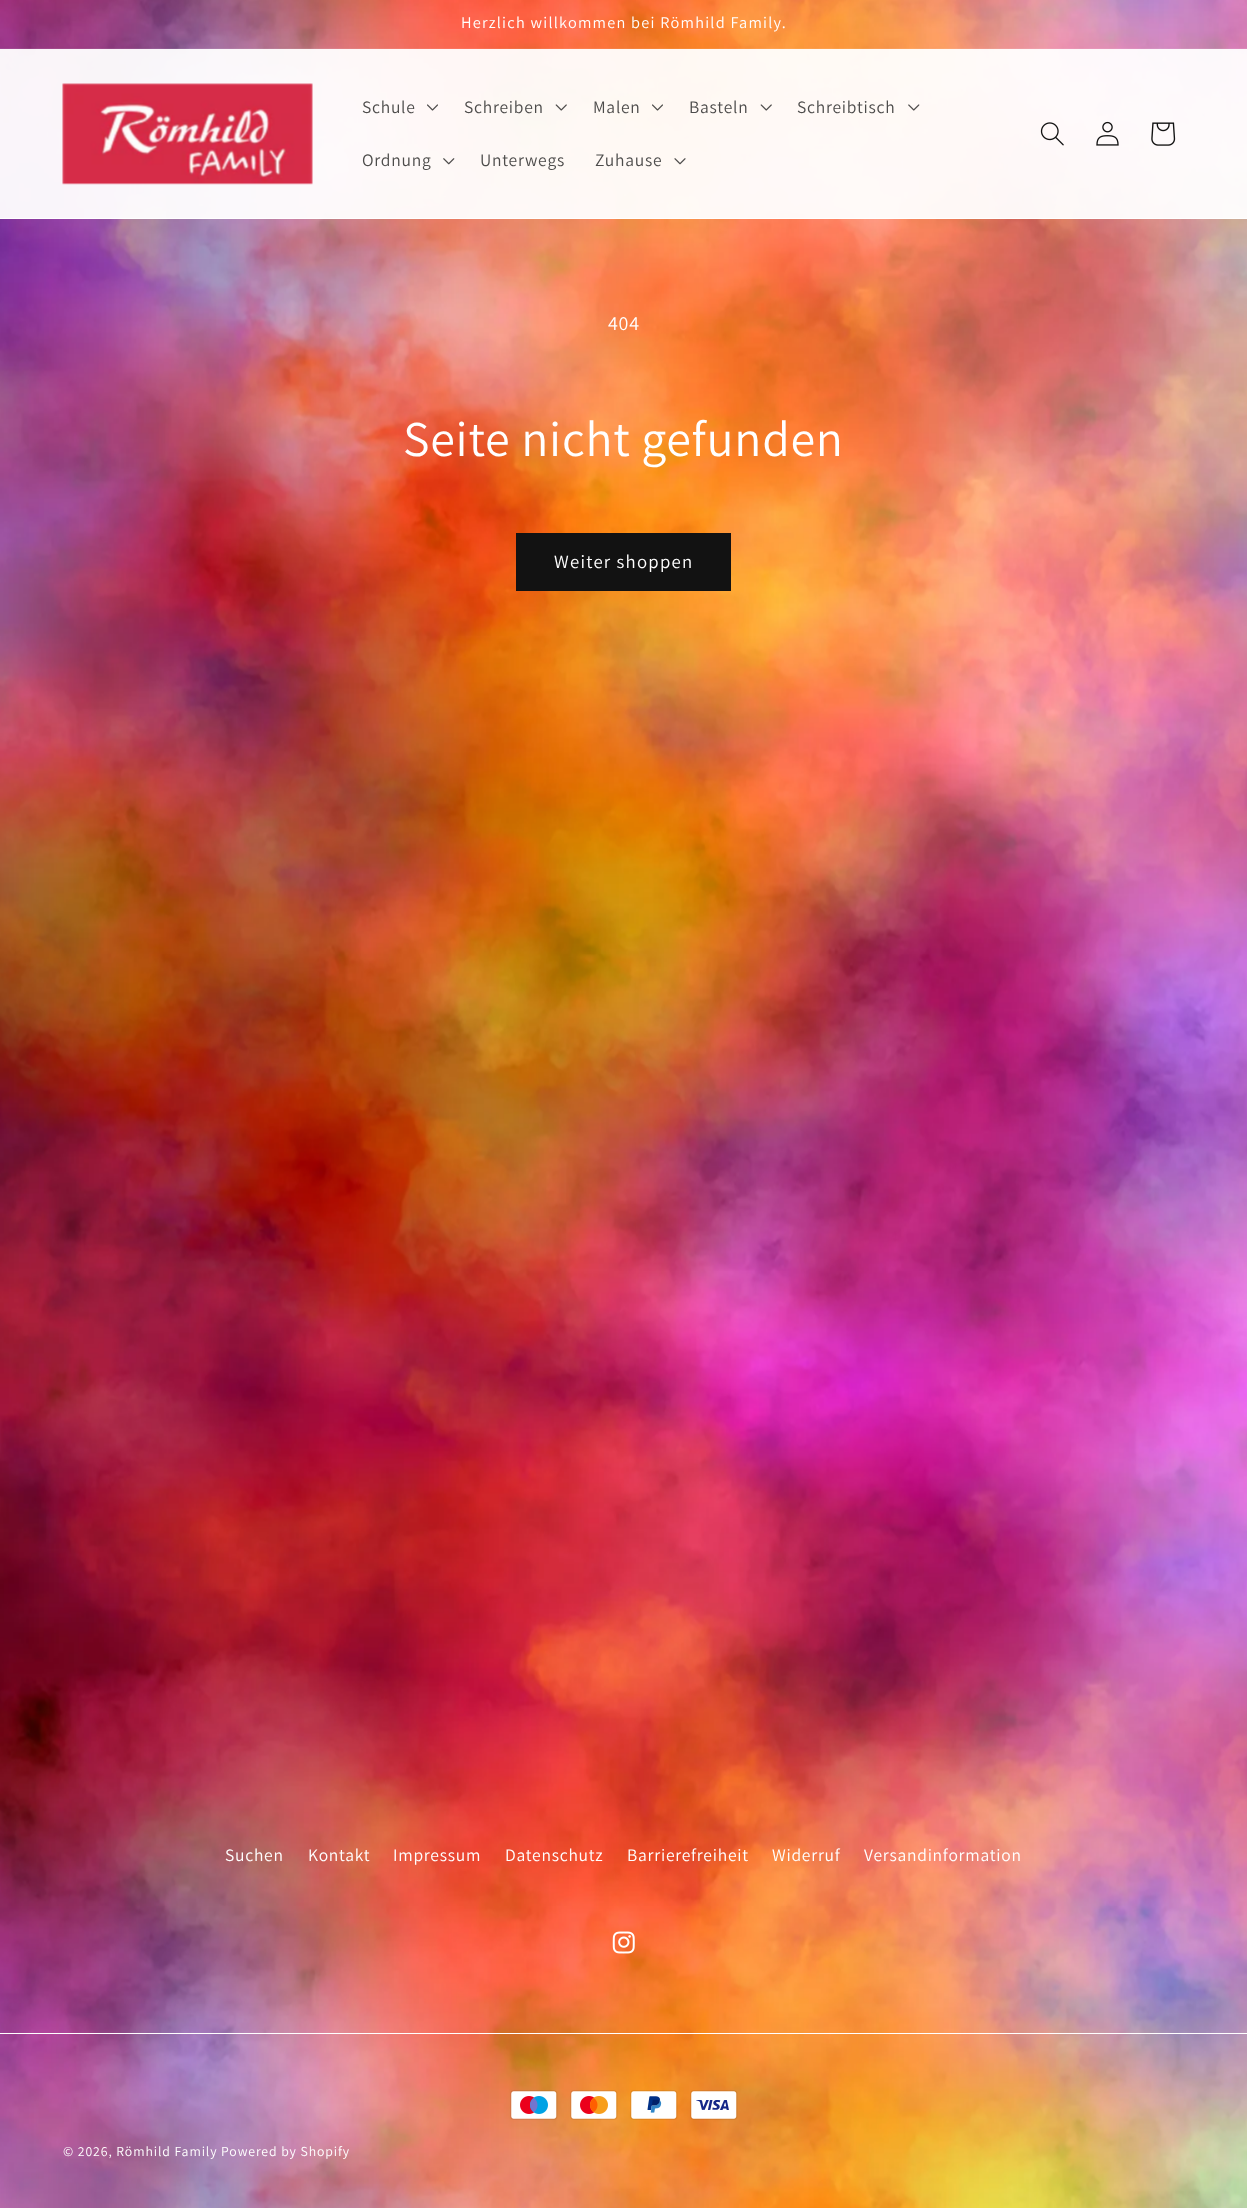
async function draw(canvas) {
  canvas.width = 1247
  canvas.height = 2208
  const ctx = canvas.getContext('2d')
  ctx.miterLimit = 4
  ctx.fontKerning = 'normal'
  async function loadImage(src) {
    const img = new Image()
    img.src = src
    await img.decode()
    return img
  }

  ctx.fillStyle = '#fff'
  ctx.fillRect(0, 0, 1247, 2208)
  ctx.drawImage(await loadImage('image0.png'), 0, 0, 1247, 2208)
  ctx.fillStyle = '#ffffff14'
  ctx.fillRect(0, 48, 1247, 1)
  ctx.letterSpacing = '1.25px'
  ctx.font = '16.25px Assistant'
  ctx.fillStyle = '#fff'
  ctx.fillText('Herzlich willkommen bei Römhild Family.', 461, 28)
  ctx.fillStyle = '#fffffff2'
  ctx.fillRect(0, 49, 1247, 169)
  ctx.fillStyle = '#fff'
  ctx.fillRect(0, 218, 1247, 1)
  ctx.drawImage(await loadImage('image1.png'), 62, 83, 251, 102)
  ctx.letterSpacing = '0.75px'
  ctx.font = '17.5px Assistant'
  ctx.fillStyle = '#4d4c4b'
  ctx.fillText('Schule', 362, 113)
  ctx.drawImage(await loadImage('image2.png'), 427, 104, 11, 7)
  ctx.fillText('Schreiben', 464, 113)
  ctx.drawImage(await loadImage('image3.png'), 555, 104, 12, 7)
  ctx.fillText('Malen', 593, 113)
  ctx.drawImage(await loadImage('image4.png'), 652, 104, 11, 7)
  ctx.fillText('Basteln', 689, 113)
  ctx.drawImage(await loadImage('image5.png'), 760, 104, 12, 7)
  ctx.fillText('Schreibtisch', 797, 113)
  ctx.drawImage(await loadImage('image6.png'), 908, 104, 12, 7)
  ctx.fillText('Ordnung', 362, 166)
  ctx.drawImage(await loadImage('image7.png'), 443, 158, 12, 7)
  ctx.fillText('Unterwegs', 480, 166)
  ctx.fillText('Zuhause', 595, 166)
  ctx.drawImage(await loadImage('image8.png'), 674, 158, 12, 7)
  ctx.drawImage(await loadImage('image9.png'), 1040, 122, 24, 24)
  ctx.drawImage(await loadImage('image10.png'), 1096, 121, 23, 25)
  ctx.drawImage(await loadImage('image11.png'), 1151, 122, 25, 24)
  ctx.font = '20px Assistant'
  ctx.fillStyle = '#fff'
  ctx.fillText('404', 608, 330)
  ctx.font = '50px Assistant'
  ctx.fillText('Seite nicht gefunden', 403, 456)
  ctx.fillStyle = '#121212'
  ctx.fillRect(516, 533, 215, 58)
  ctx.letterSpacing = '1.25px'
  ctx.font = '18.75px Assistant'
  ctx.fillStyle = '#fff'
  ctx.fillText('Weiter shoppen', 554, 568)
  ctx.letterSpacing = '0.75px'
  ctx.font = '17.5px Assistant'
  ctx.fillText('Suchen', 225, 1861)
  ctx.fillText('Kontakt', 308, 1861)
  ctx.fillText('Impressum', 393, 1861)
  ctx.fillText('Datenschutz', 505, 1861)
  ctx.fillText('Barrierefreiheit', 627, 1861)
  ctx.fillText('Widerruf', 772, 1861)
  ctx.fillText('Versandinformation', 864, 1861)
  ctx.drawImage(await loadImage('image12.png'), 612, 1931, 23, 23)
  ctx.fillRect(0, 2033, 1247, 1)
  ctx.drawImage(await loadImage('image13.png'), 510, 2090, 48, 30)
  ctx.drawImage(await loadImage('image14.png'), 570, 2090, 48, 30)
  ctx.drawImage(await loadImage('image15.png'), 630, 2090, 48, 30)
  ctx.drawImage(await loadImage('image16.png'), 690, 2090, 48, 30)
  ctx.letterSpacing = '0.9px'
  ctx.font = '13.75px Assistant'
  ctx.fillText('© 2026, Römhild Family Powered by Shopify', 63, 2156)
}

draw(document.querySelector('canvas'))
